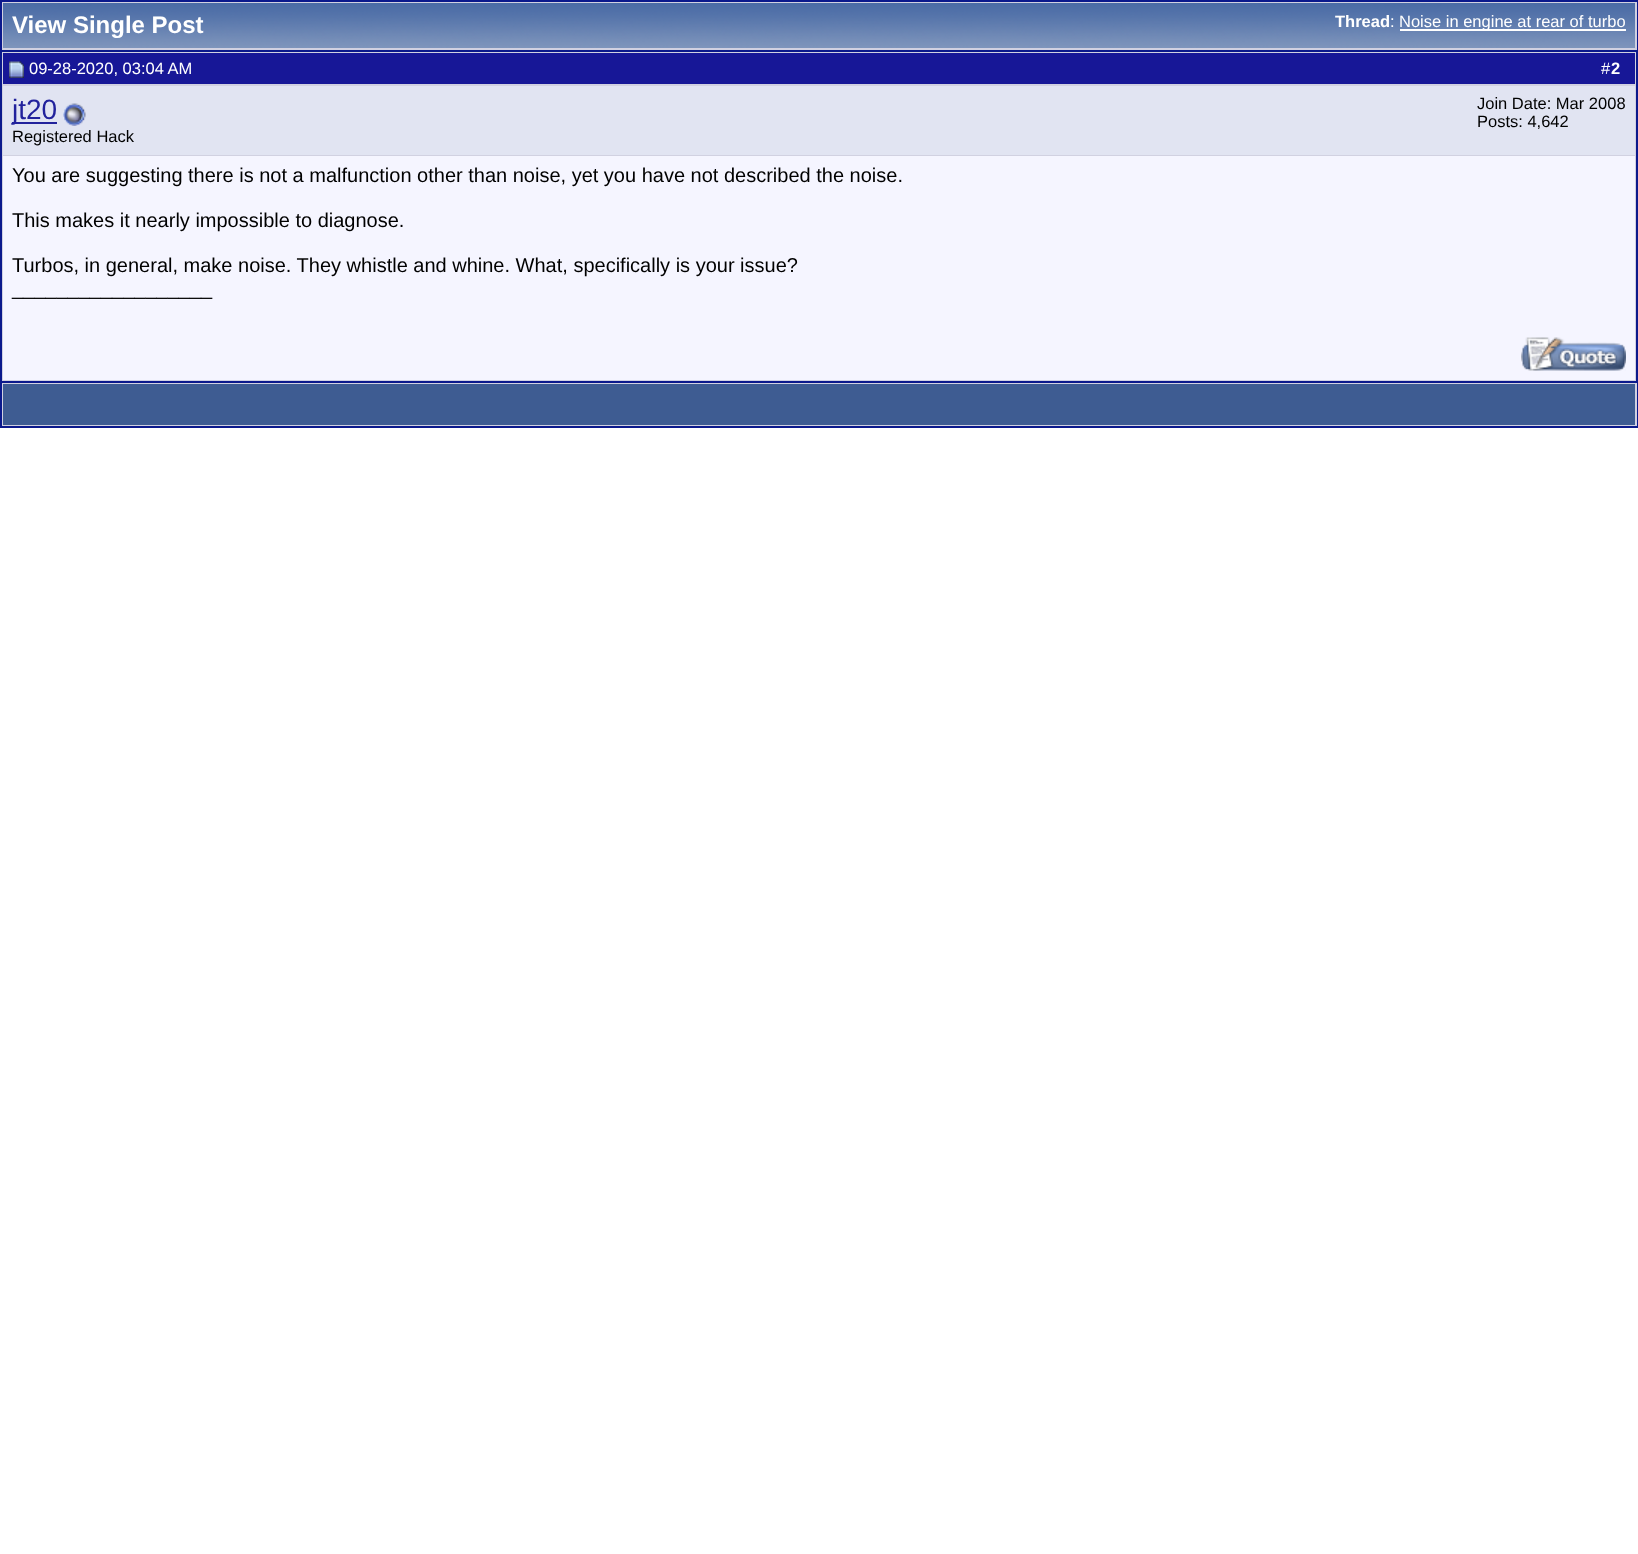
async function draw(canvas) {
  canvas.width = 1638
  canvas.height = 1554
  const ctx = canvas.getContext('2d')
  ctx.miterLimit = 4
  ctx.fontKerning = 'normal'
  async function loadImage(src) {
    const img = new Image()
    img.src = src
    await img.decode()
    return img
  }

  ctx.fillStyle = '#fff'
  ctx.fillRect(0, 0, 1638, 1554)
  ctx.fillStyle = '#d1d1e1'
  ctx.fillRect(2, 2, 1635, 48)
  ctx.fillStyle = '#0b198c'
  ctx.fillRect(0, 0, 1638, 2)
  ctx.fillRect(1637, 0, 1, 50)
  ctx.fillRect(0, 0, 2, 50)
  ctx.drawImage(await loadImage('image0.png'), 3, 3, 1632, 45)
  ctx.font = 'bold 24px Liberation Sans'
  ctx.fillStyle = '#fff'
  ctx.fillText('View Single Post', 12, 33)
  ctx.font = 'bold 16.5px Liberation Sans'
  ctx.fillText('Thread', 1335, 27)
  ctx.font = '16.5px Liberation Sans'
  ctx.fillText(':', 1390, 27)
  ctx.fillRect(1400, 29, 226, 2)
  ctx.fillText('Noise in engine at rear of turbo', 1399, 27)
  ctx.fillStyle = '#d1d1e1'
  ctx.beginPath()
  ctx.rect(1, 51, 1636, 331)
  ctx.fill()
  ctx.strokeStyle = '#0b198c'
  ctx.lineWidth = 2
  ctx.stroke()
  ctx.fillStyle = '#171797'
  ctx.fillRect(3, 53, 1632, 31)
  ctx.drawImage(await loadImage('image1.png'), 9, 61, 15, 17)
  ctx.fillStyle = '#fff'
  ctx.fillText('09-28-2020, 03:04 AM', 29, 74)
  ctx.fillText('#', 1601, 74)
  ctx.font = 'bold 16.5px Liberation Sans'
  ctx.fillText('2', 1611, 74)
  ctx.fillStyle = '#e1e4f2'
  ctx.fillRect(3, 86, 1632, 69)
  ctx.fillStyle = '#22229c'
  ctx.fillRect(12, 122, 45, 2)
  ctx.font = '28px Liberation Sans'
  ctx.fillText('jt20', 12, 119)
  ctx.drawImage(await loadImage('image2.png'), 63, 103, 23, 23)
  ctx.font = '16.5px Liberation Sans'
  ctx.fillStyle = '#000'
  ctx.fillText('Registered Hack', 12, 142)
  ctx.fillText('Join Date: Mar 2008', 1477, 109)
  ctx.fillText('Posts: 4,642', 1477, 127)
  ctx.fillStyle = '#f5f5ff'
  ctx.fillRect(3, 156, 1632, 224)
  ctx.font = '20px Liberation Sans'
  ctx.fillStyle = '#000'
  ctx.fillText('You are suggesting there is not a malfunction other than noise, yet you have not described the noise.', 12, 182)
  ctx.fillText('This makes it nearly impossible to diagnose.', 12, 227)
  ctx.fillText('Turbos, in general, make noise. They whistle and whine. What, specifically is your issue?', 12, 272)
  ctx.fillText('__________________', 12, 295)
  ctx.drawImage(await loadImage('image3.png'), 1521, 337, 105, 34)
  ctx.fillStyle = '#d1d1e1'
  ctx.fillRect(2, 383, 1635, 43)
  ctx.fillStyle = '#0b198c'
  ctx.fillRect(1637, 383, 1, 45)
  ctx.fillRect(0, 426, 1638, 2)
  ctx.fillRect(0, 383, 2, 45)
  ctx.fillStyle = '#3e5c92'
  ctx.fillRect(3, 384, 1632, 41)
}

draw(document.querySelector('canvas'))
